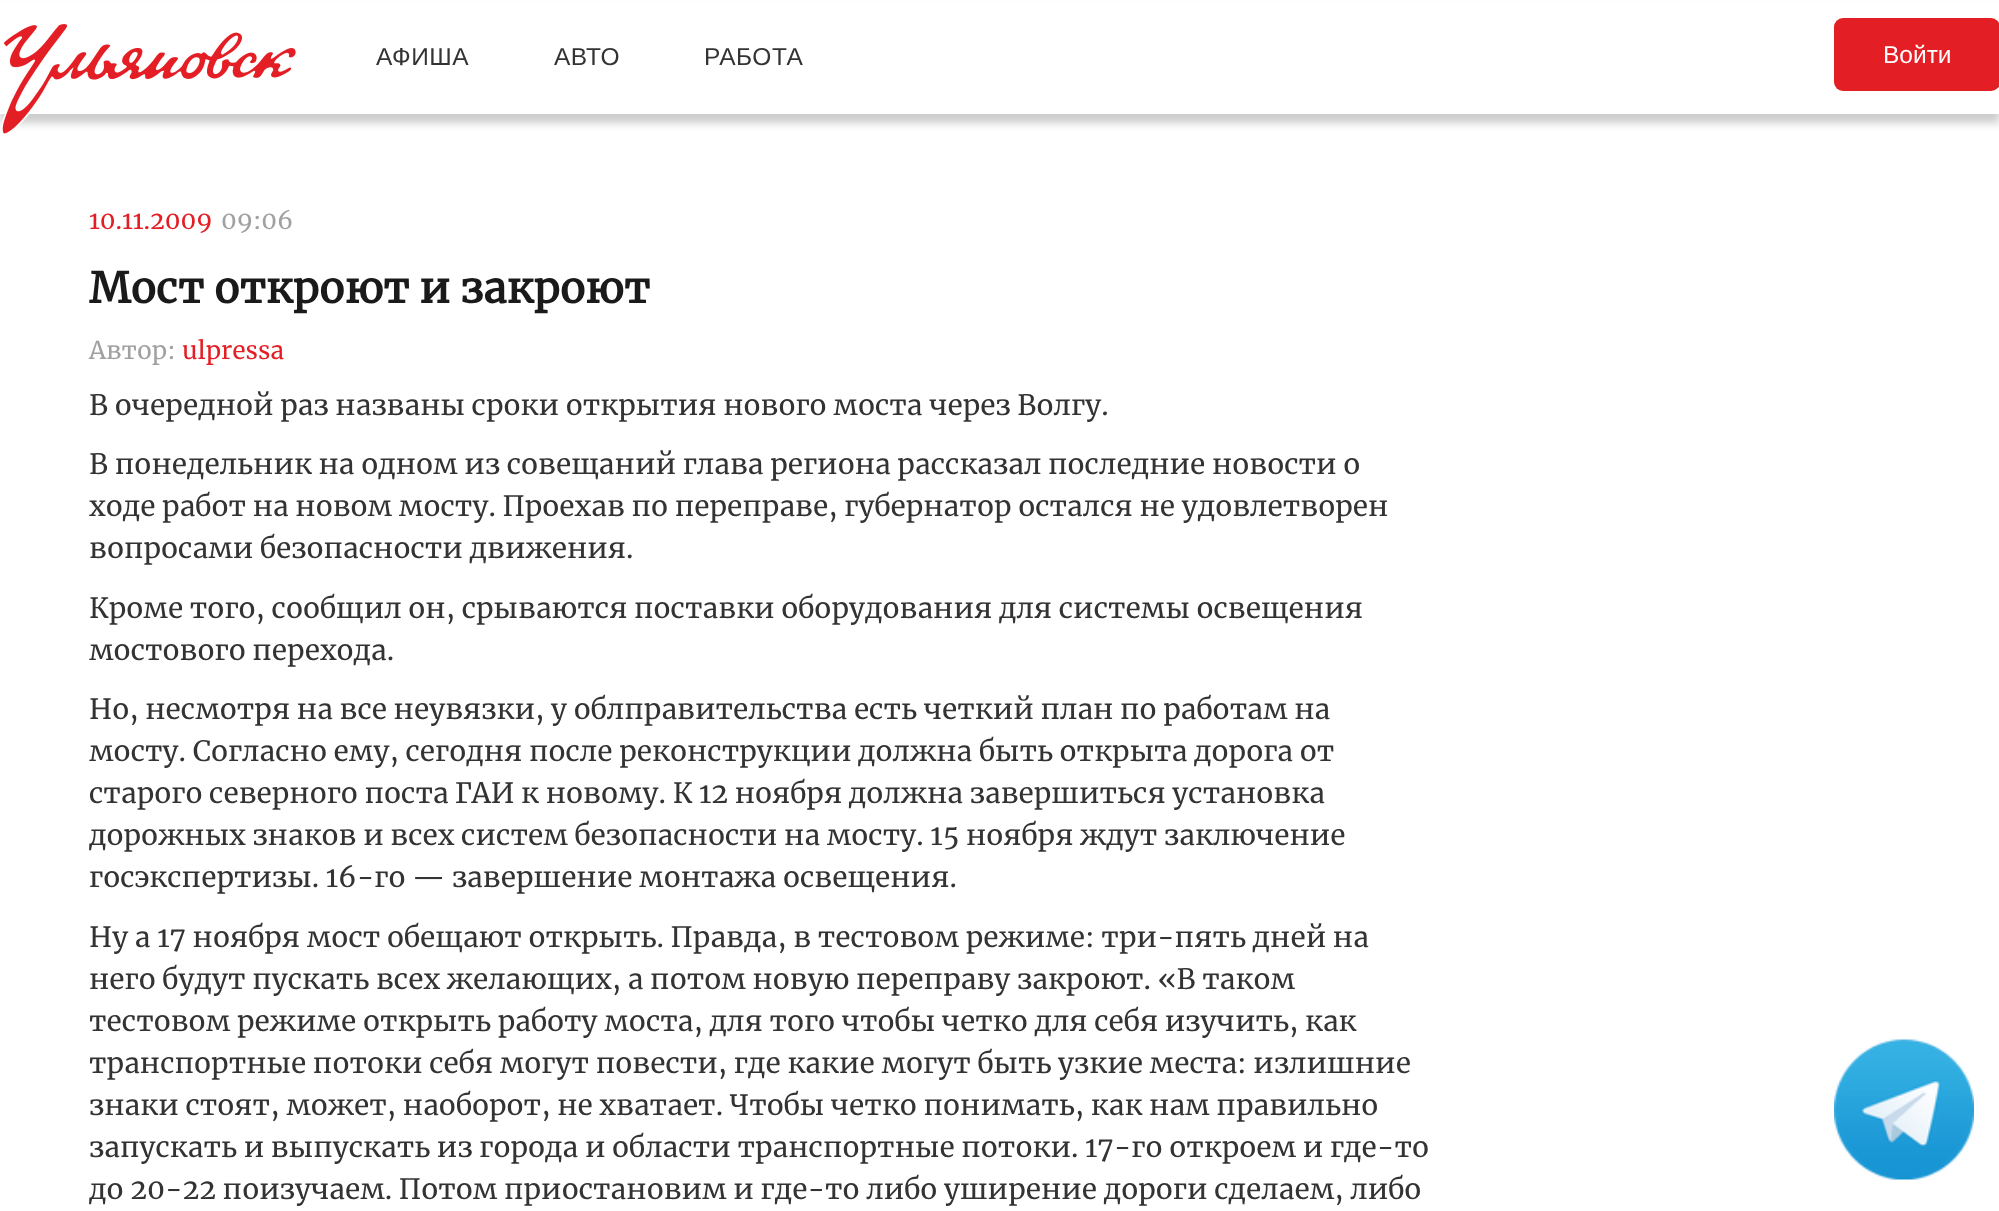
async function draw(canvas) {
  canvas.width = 1999
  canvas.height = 1211
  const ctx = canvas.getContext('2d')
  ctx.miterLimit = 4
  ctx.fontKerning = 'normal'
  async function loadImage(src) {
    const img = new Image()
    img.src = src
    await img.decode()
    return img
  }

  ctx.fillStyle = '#fff'
  ctx.fillRect(0, 0, 1999, 1211)
  ctx.fillStyle = '#00000033'
  ctx.filter = 'blur(4.5px)'
  ctx.beginPath()
  ctx.rect(0, 9, 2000, 114)
  ctx.fill()
  ctx.filter = 'none'
  ctx.fillStyle = '#fff'
  ctx.fillRect(0, 2, 1999, 112)
  ctx.drawImage(await loadImage('image0.png'), 1, 24, 295, 110)
  ctx.letterSpacing = '0.5px'
  ctx.font = '24.5px Liberation Sans'
  ctx.fillStyle = '#333'
  ctx.fillText('АФИША', 376, 65)
  ctx.fillText('АВТО', 554, 65)
  ctx.fillText('РАБОТА', 704, 65)
  ctx.fillStyle = '#e31e24'
  ctx.beginPath()
  ctx.roundRect(1834, 18, 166, 73, 9)
  ctx.fill()
  ctx.letterSpacing = '0px'
  ctx.fillStyle = '#fff'
  ctx.fillText('Войти', 1883, 63)
  ctx.font = '24.5px Merriweather'
  ctx.fillStyle = '#e31e24'
  ctx.fillText('10.11.2009', 89, 229)
  ctx.fillStyle = '#a1a1a1'
  ctx.fillText('09:06', 221, 229)
  ctx.font = 'bold 42px Merriweather'
  ctx.fillStyle = '#1a1a1a'
  ctx.fillText('Мост откроют и закроют', 89, 303)
  ctx.font = '24.5px Merriweather'
  ctx.fillStyle = '#a1a1a1'
  ctx.fillText('Автор:', 89, 359)
  ctx.fillStyle = '#e31e24'
  ctx.fillText('ulpressa', 182, 359)
  ctx.font = '28px Merriweather'
  ctx.fillStyle = '#333'
  ctx.fillText('В очередной раз названы сроки открытия нового моста через Волгу.', 89, 415)
  ctx.fillText('В понедельник на одном из совещаний глава региона рассказал последние новости о', 89, 474)
  ctx.fillText('ходе работ на новом мосту. Проехав по переправе, губернатор остался не удовлетворен', 89, 516)
  ctx.fillText('вопросами безопасности движения.', 89, 558)
  ctx.fillText('Кроме того, сообщил он, срываются поставки оборудования для системы освещения', 89, 618)
  ctx.fillText('мостового перехода.', 89, 660)
  ctx.fillText('Но, несмотря на все неувязки, у облправительства есть четкий план по работам на', 89, 719)
  ctx.fillText('мосту. Согласно ему, сегодня после реконструкции должна быть открыта дорога от', 89, 761)
  ctx.fillText('старого северного поста ГАИ к новому. К 12 ноября должна завершиться установка', 89, 803)
  ctx.fillText('дорожных знаков и всех систем безопасности на мосту. 15 ноября ждут заключение', 89, 845)
  ctx.fillText('госэкспертизы. 16-го — завершение монтажа освещения.', 89, 887)
  ctx.fillText('Ну а 17 ноября мост обещают открыть. Правда, в тестовом режиме: три-пять дней на', 89, 947)
  ctx.fillText('него будут пускать всех желающих, а потом новую переправу закроют. «В таком', 89, 989)
  ctx.fillText('тестовом режиме открыть работу моста, для того чтобы четко для себя изучить, как', 89, 1031)
  ctx.fillText('транспортные потоки себя могут повести, где какие могут быть узкие места: излишние', 89, 1073)
  ctx.fillText('знаки стоят, может, наоборот, не хватает. Чтобы четко понимать, как нам правильно', 89, 1115)
  ctx.fillText('запускать и выпускать из города и области транспортные потоки. 17-го откроем и где-то', 89, 1157)
  ctx.fillText('до 20-22 поизучаем. Потом приостановим и где-то либо уширение дороги сделаем, либо', 89, 1199)
  ctx.drawImage(await loadImage('image1.png'), 1834, 1039, 140, 141)
}

draw(document.querySelector('canvas'))
